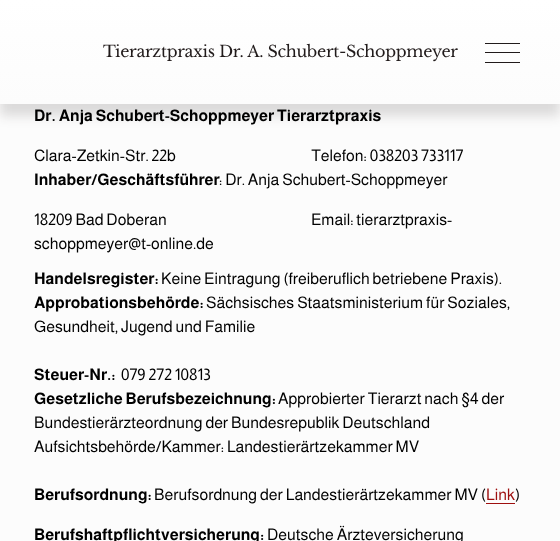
async function draw(canvas) {
  canvas.width = 560
  canvas.height = 541
  const ctx = canvas.getContext('2d')
  ctx.miterLimit = 4
  ctx.fontKerning = 'normal'
  let gradient

  ctx.fillStyle = '#fcfcfc'
  ctx.fillRect(0, 0, 560, 541)
  ctx.fillStyle = '#211b1b26'
  ctx.filter = 'blur(6px)'
  ctx.beginPath()
  ctx.rect(0, 12, 560, 104)
  ctx.fill()
  ctx.filter = 'none'
  gradient = ctx.createLinearGradient(280, 0, 280, 104)
  gradient.addColorStop(0, '#fff')
  gradient.addColorStop(1, '#fcfcfc')
  ctx.fillStyle = gradient
  ctx.fillRect(0, 0, 560, 104)
  ctx.letterSpacing = '-0.3px'
  ctx.font = '16px Libre Baskerville'
  ctx.fillStyle = '#211b1b'
  ctx.fillText('Tierarztpraxis Dr. A. Schubert-Schoppmeyer', 103, 57)
  ctx.fillRect(485, 43, 35, 1)
  ctx.fillRect(485, 52, 35, 1)
  ctx.fillRect(485, 62, 35, 1)
  ctx.letterSpacing = '0px'
  ctx.font = 'bold 16px Almarai'
  ctx.fillStyle = '#000'
  ctx.fillText('Dr. Anja Schubert-Schoppmeyer Tierarztpraxis', 34, 121)
  ctx.font = '16px Almarai'
  ctx.fillText('Clara-Zetkin-Str. 22b                                              Telefon: 038203 733117', 34, 161)
  ctx.font = 'bold 16px Almarai'
  ctx.fillText('Inhaber/Geschäftsführer', 34, 185)
  ctx.font = '16px Almarai'
  ctx.fillText(': Dr. Anja Schubert-Schoppmeyer', 219, 185)
  ctx.fillText('18209 Bad Doberan                                                 Email: tierarztpraxis-', 34, 225)
  ctx.fillText('schoppmeyer@t-online.de', 34, 249)
  ctx.font = 'bold 16px Almarai'
  ctx.fillText('Handelsregister:', 34, 284)
  ctx.font = '16px Almarai'
  ctx.fillText('Keine Eintragung (freiberuflich betriebene Praxis).', 161, 284)
  ctx.font = 'bold 16px Almarai'
  ctx.fillText('Approbationsbehörde:', 34, 308)
  ctx.font = '16px Almarai'
  ctx.fillText('Sächsisches Staatsministerium für Soziales,', 206, 308)
  ctx.fillText('Gesundheit, Jugend und Familie', 34, 332)
  ctx.font = 'bold 16px Almarai'
  ctx.fillText('Steuer-Nr.:', 34, 380)
  ctx.font = '16px Almarai'
  ctx.fillText('079 272 10813', 121, 380)
  ctx.font = 'bold 16px Almarai'
  ctx.fillText('Gesetzliche Berufsbezeichnung:', 34, 404)
  ctx.font = '16px Almarai'
  ctx.fillText('Approbierter Tierarzt nach §4 der', 278, 404)
  ctx.fillText('Bundestierärzteordnung der Bundesrepublik Deutschland', 34, 428)
  ctx.fillText('Aufsichtsbehörde/Kammer: Landestierärtzekammer MV', 34, 452)
  ctx.font = 'bold 16px Almarai'
  ctx.fillText('Berufsordnung:', 34, 500)
  ctx.font = '16px Almarai'
  ctx.fillText('Berufsordnung der Landestierärtzekammer MV (', 154, 500)
  ctx.fillStyle = '#9e0f0f'
  ctx.fillText('Link', 486, 500)
  ctx.fillRect(486, 503, 29, 1)
  ctx.fillStyle = '#000'
  ctx.fillText(')', 515, 500)
  ctx.font = 'bold 16px Almarai'
  ctx.fillText('Berufshaftpflichtversicherung:', 34, 540)
  ctx.font = '16px Almarai'
  ctx.fillText('Deutsche Ärzteversicherung', 267, 540)
}

draw(document.querySelector('canvas'))
